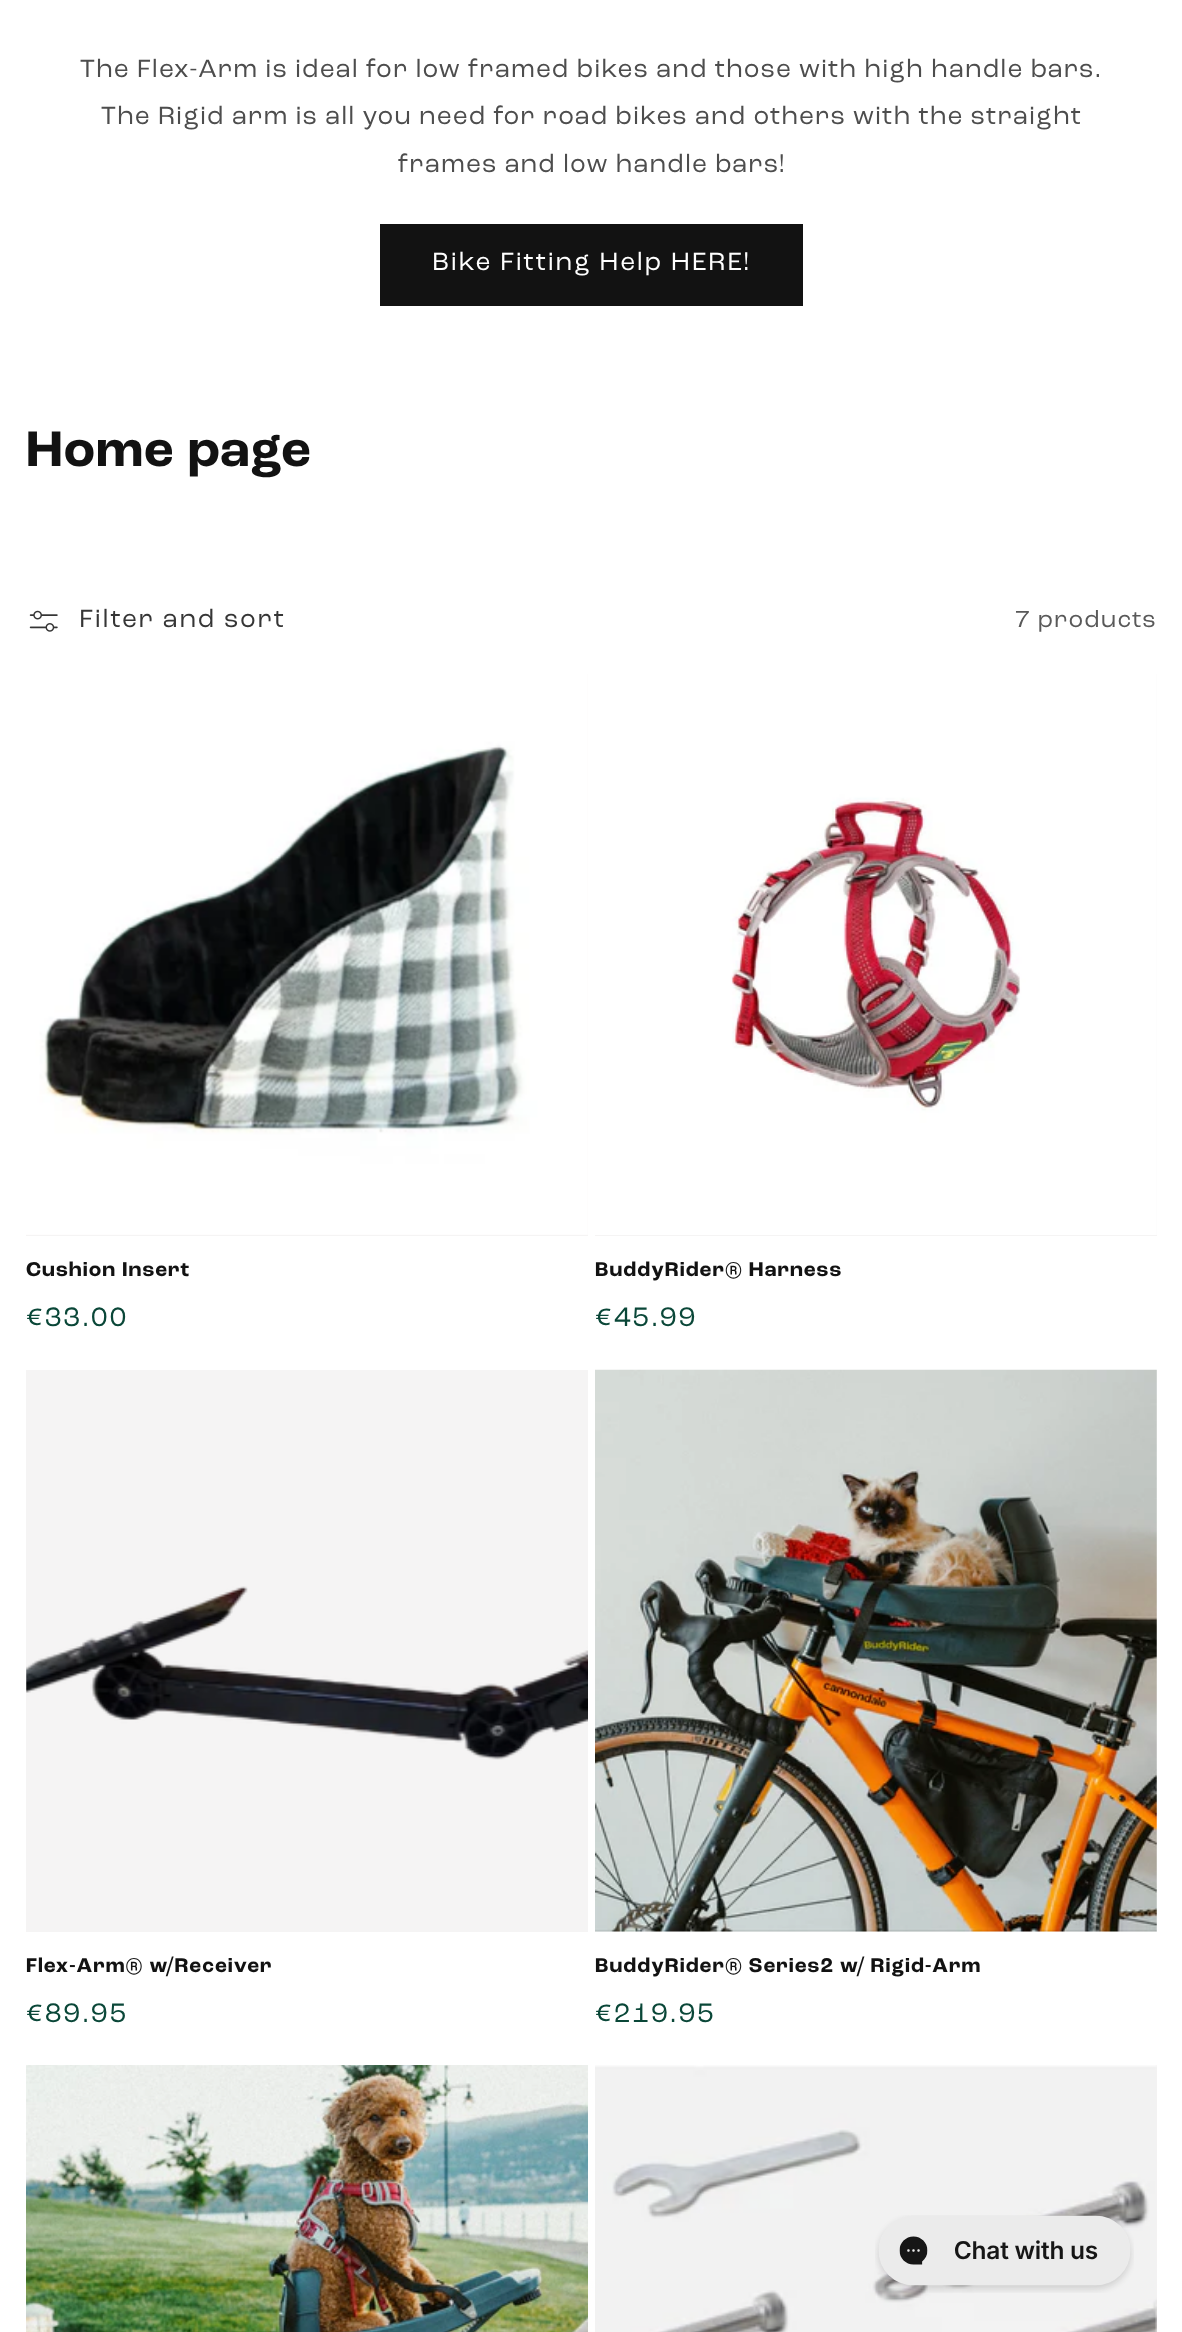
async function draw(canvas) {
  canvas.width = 1182
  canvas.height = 2332
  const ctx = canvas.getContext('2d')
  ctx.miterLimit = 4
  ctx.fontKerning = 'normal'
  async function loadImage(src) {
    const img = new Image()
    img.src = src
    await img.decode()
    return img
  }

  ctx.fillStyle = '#fff'
  ctx.fillRect(0, 0, 1182, 2332)
  ctx.letterSpacing = '1.05px'
  ctx.font = '26.25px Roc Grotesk'
  ctx.fillStyle = '#4d4d4d'
  ctx.fillText('The Flex-Arm is ideal for low framed bikes and those with high handle bars.', 80, 77)
  ctx.fillText('The Rigid arm is all you need for road bikes and others with the straight', 101, 124)
  ctx.fillText('frames and low handle bars!', 398, 172)
  ctx.fillStyle = '#121212'
  ctx.fillRect(380, 224, 423, 82)
  ctx.letterSpacing = '1.75px'
  ctx.fillStyle = '#fff'
  ctx.fillText('Bike Fitting Help HERE!', 432, 270)
  ctx.letterSpacing = '1.05px'
  ctx.font = 'bold 52.5px Roc Grotesk'
  ctx.fillStyle = '#121212'
  ctx.fillText('Home page', 26, 466)
  ctx.drawImage(await loadImage('image0.png'), 29, 610, 29, 22)
  ctx.letterSpacing = '1.75px'
  ctx.font = '26.25px Roc Grotesk'
  ctx.fillStyle = '#363636'
  ctx.fillText('Filter and sort', 79, 627)
  ctx.letterSpacing = '1.05px'
  ctx.font = '24.5px Roc Grotesk'
  ctx.fillStyle = '#595959'
  ctx.fillText('7 products', 1015, 627)
  ctx.fillStyle = '#f5f4f4'
  ctx.fillRect(26, 674, 562, 562)
  ctx.drawImage(await loadImage('image1.png'), 26, 674, 562, 561)
  ctx.font = 'bold 21px Roc Grotesk'
  ctx.fillStyle = '#121212'
  ctx.fillText('Cushion Insert', 26, 1276)
  ctx.letterSpacing = '1.75px'
  ctx.font = '28px Roc Grotesk'
  ctx.fillStyle = '#0a4738'
  ctx.fillText('€33.00', 26, 1326)
  ctx.fillStyle = '#f5f4f4'
  ctx.fillRect(595, 674, 562, 562)
  ctx.drawImage(await loadImage('image2.png'), 595, 674, 562, 561)
  ctx.letterSpacing = '1.05px'
  ctx.font = 'bold 21px Roc Grotesk'
  ctx.fillStyle = '#121212'
  ctx.fillText('BuddyRider® Harness', 595, 1276)
  ctx.letterSpacing = '1.75px'
  ctx.font = '28px Roc Grotesk'
  ctx.fillStyle = '#0a4738'
  ctx.fillText('€45.99', 595, 1326)
  ctx.fillStyle = '#f5f4f4'
  ctx.fillRect(26, 1370, 562, 562)
  ctx.drawImage(await loadImage('image3.png'), 26, 1586, 562, 174)
  ctx.letterSpacing = '1.05px'
  ctx.font = 'bold 21px Roc Grotesk'
  ctx.fillStyle = '#121212'
  ctx.fillText('Flex-Arm® w/Receiver', 26, 1972)
  ctx.letterSpacing = '1.75px'
  ctx.font = '28px Roc Grotesk'
  ctx.fillStyle = '#0a4738'
  ctx.fillText('€89.95', 26, 2022)
  ctx.fillStyle = '#f5f4f4'
  ctx.fillRect(595, 1370, 562, 562)
  ctx.drawImage(await loadImage('image4.png'), 595, 1369, 562, 563)
  ctx.letterSpacing = '1.05px'
  ctx.font = 'bold 21px Roc Grotesk'
  ctx.fillStyle = '#121212'
  ctx.fillText('BuddyRider® Series2 w/ Rigid-Arm', 595, 1972)
  ctx.letterSpacing = '1.75px'
  ctx.font = '28px Roc Grotesk'
  ctx.fillStyle = '#0a4738'
  ctx.fillText('€219.95', 595, 2022)
  ctx.drawImage(await loadImage('image5.png'), 26, 2065, 562, 267)
  ctx.fillStyle = '#f5f4f4'
  ctx.fillRect(1155, 2065, 2, 267)
  ctx.drawImage(await loadImage('image6.png'), 595, 2065, 562, 267)
  ctx.drawImage(await loadImage('image7.png'), 875, 2215, 259, 78)
}

draw(document.querySelector('canvas'))
